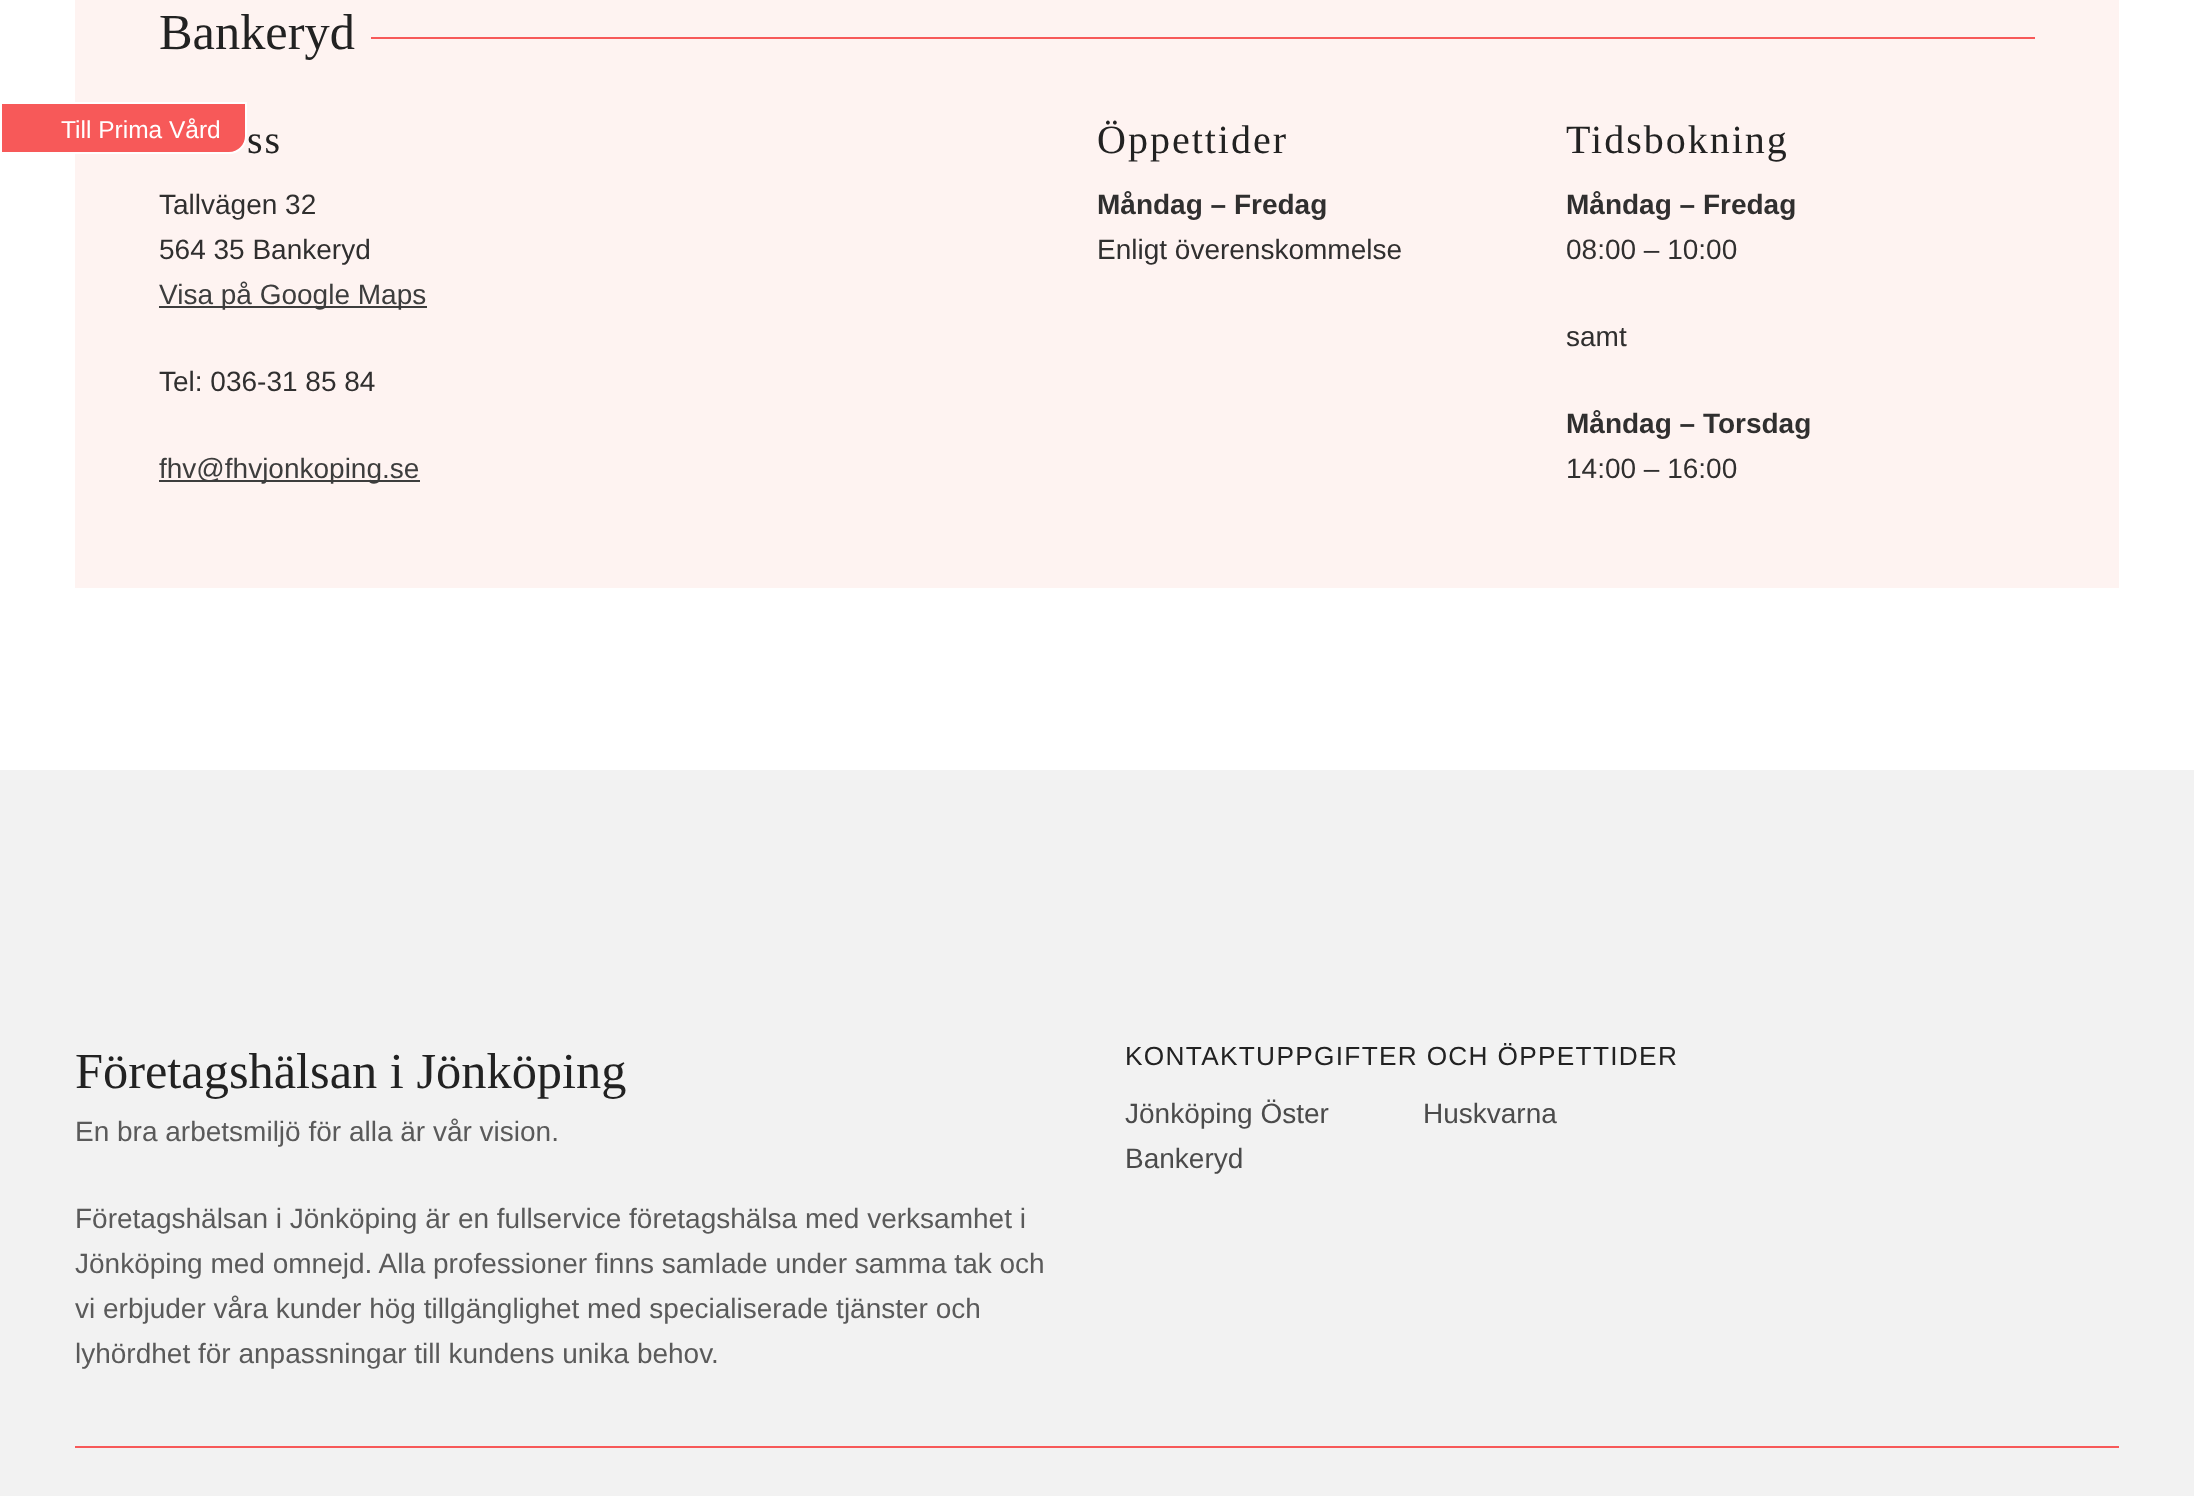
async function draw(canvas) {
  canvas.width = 2194
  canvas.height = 1496
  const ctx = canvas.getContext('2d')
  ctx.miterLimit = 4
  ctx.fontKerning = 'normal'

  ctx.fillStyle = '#fff'
  ctx.fillRect(0, 0, 2194, 1496)
  ctx.fillStyle = '#fef3f1'
  ctx.fillRect(75, 0, 2044, 588)
  ctx.fillStyle = '#f75959'
  ctx.beginPath()
  ctx.roundRect(1, 103, 245, 50, [0, 0, 17, 0])
  ctx.fill()
  ctx.strokeStyle = '#fff'
  ctx.lineWidth = 2
  ctx.stroke()
  ctx.font = '24.5px Liberation Sans'
  ctx.fillStyle = '#fff'
  ctx.fillText('Till Prima Vård', 61, 138)
  ctx.font = '50.4px Liberation Serif'
  ctx.fillStyle = '#222'
  ctx.fillText('Bankeryd', 159, 49)
  ctx.fillStyle = '#f75959'
  ctx.fillRect(371, 37, 1664, 2)
  ctx.letterSpacing = '2px'
  ctx.font = '40px Liberation Serif'
  ctx.fillStyle = '#222'
  ctx.fillText('ss', 247, 153)
  ctx.letterSpacing = '0px'
  ctx.font = '28px Liberation Sans'
  ctx.fillStyle = '#302f2f'
  ctx.fillText('Tallvägen 32', 159, 214)
  ctx.fillText('564 35 Bankeryd', 159, 259)
  ctx.fillStyle = '#3d3d3d'
  ctx.fillRect(159, 306, 268, 2)
  ctx.fillText('Visa på Google Maps', 159, 304)
  ctx.fillStyle = '#302f2f'
  ctx.fillText('Tel: 036-31 85 84', 159, 391)
  ctx.fillStyle = '#3d3d3d'
  ctx.fillRect(159, 480, 261, 2)
  ctx.fillText('fhv@fhvjonkoping.se', 159, 478)
  ctx.letterSpacing = '2px'
  ctx.font = '40px Liberation Serif'
  ctx.fillStyle = '#222'
  ctx.fillText('Öppettider', 1097, 153)
  ctx.letterSpacing = '0px'
  ctx.font = 'bold 28px Liberation Sans'
  ctx.fillStyle = '#302f2f'
  ctx.fillText('Måndag – Fredag', 1097, 214)
  ctx.font = '28px Liberation Sans'
  ctx.fillText('Enligt överenskommelse', 1097, 259)
  ctx.letterSpacing = '2px'
  ctx.font = '40px Liberation Serif'
  ctx.fillStyle = '#222'
  ctx.fillText('Tidsbokning', 1566, 153)
  ctx.letterSpacing = '0px'
  ctx.font = 'bold 28px Liberation Sans'
  ctx.fillStyle = '#302f2f'
  ctx.fillText('Måndag – Fredag', 1566, 214)
  ctx.font = '28px Liberation Sans'
  ctx.fillText('08:00 – 10:00', 1566, 259)
  ctx.fillText('samt', 1566, 346)
  ctx.font = 'bold 28px Liberation Sans'
  ctx.fillText('Måndag – Torsdag', 1566, 433)
  ctx.font = '28px Liberation Sans'
  ctx.fillText('14:00 – 16:00', 1566, 478)
  ctx.fillStyle = '#f2f2f2'
  ctx.fillRect(0, 770, 2194, 726)
  ctx.font = '50.4px Liberation Serif'
  ctx.fillStyle = '#222'
  ctx.fillText('Företagshälsan i Jönköping', 75, 1088)
  ctx.font = '28px Liberation Sans'
  ctx.fillStyle = '#5a5a5a'
  ctx.fillText('En bra arbetsmiljö för alla är vår vision.', 75, 1141)
  ctx.fillText('Företagshälsan i Jönköping är en fullservice företagshälsa med verksamhet i', 75, 1228)
  ctx.fillText('Jönköping med omnejd. Alla professioner finns samlade under samma tak och', 75, 1273)
  ctx.fillText('vi erbjuder våra kunder hög tillgänglighet med specialiserade tjänster och', 75, 1318)
  ctx.fillText('lyhördhet för anpassningar till kundens unika behov.', 75, 1363)
  ctx.letterSpacing = '1.3px'
  ctx.font = '26.25px Liberation Sans'
  ctx.fillStyle = '#222'
  ctx.fillText('KONTAKTUPPGIFTER OCH ÖPPETTIDER', 1125, 1065)
  ctx.letterSpacing = '0px'
  ctx.font = '28px Liberation Sans'
  ctx.fillStyle = '#4b4b4b'
  ctx.fillText('Jönköping Öster', 1125, 1123)
  ctx.fillText('Huskvarna', 1423, 1123)
  ctx.fillText('Bankeryd', 1125, 1168)
  ctx.fillStyle = '#f75959'
  ctx.fillRect(75, 1446, 2044, 2)
}

draw(document.querySelector('canvas'))
